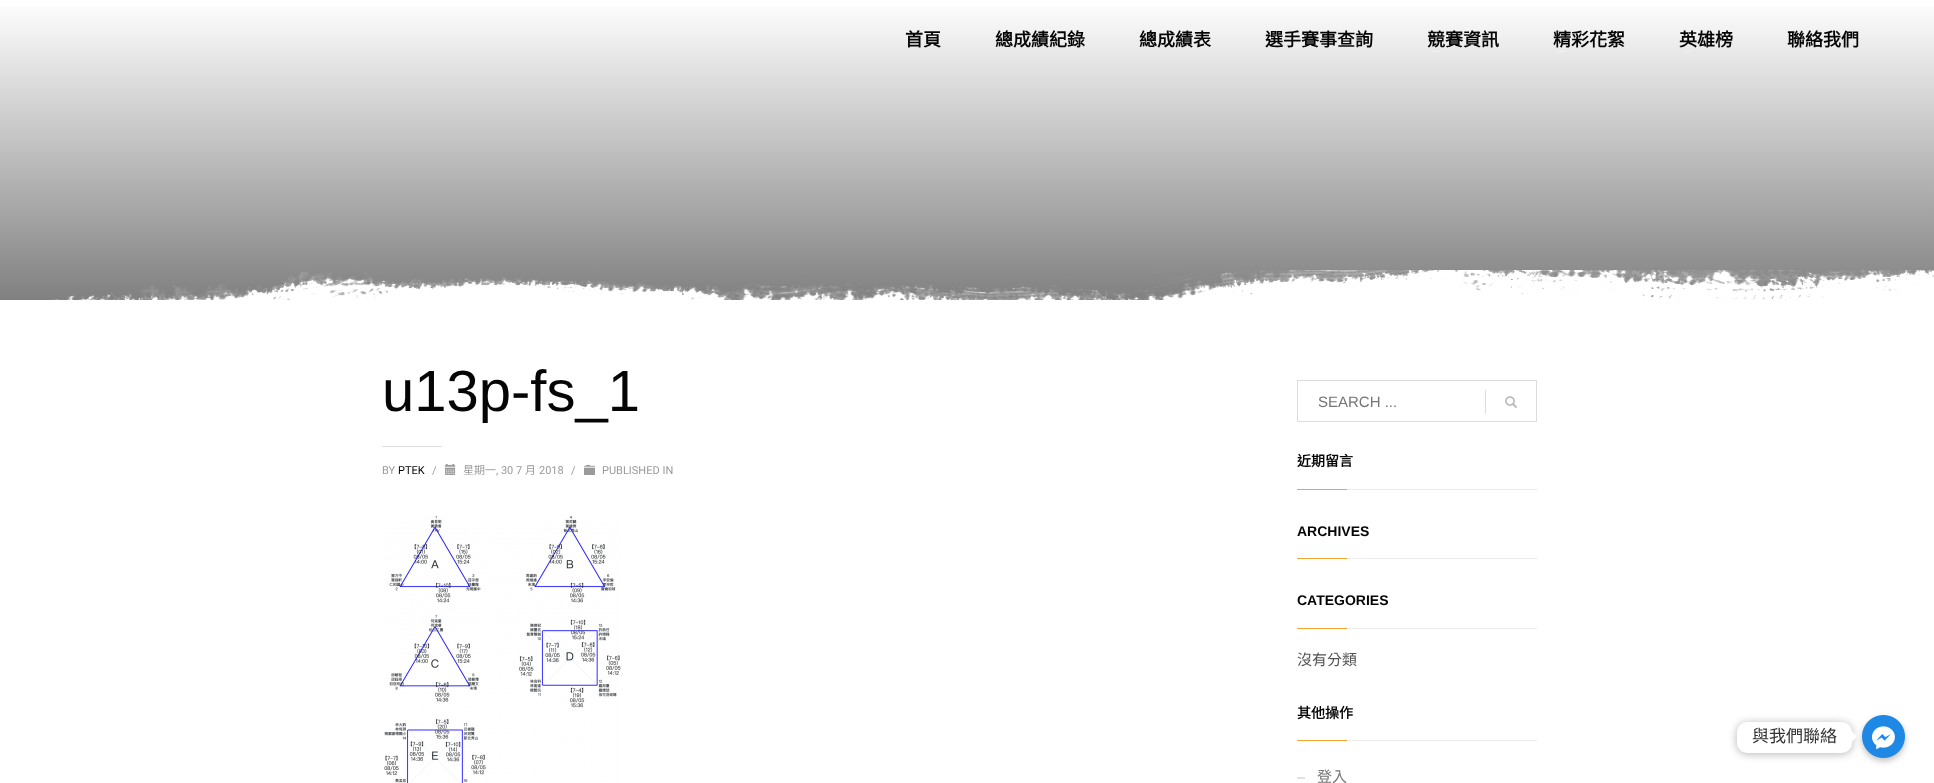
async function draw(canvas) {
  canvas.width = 1934
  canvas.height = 783
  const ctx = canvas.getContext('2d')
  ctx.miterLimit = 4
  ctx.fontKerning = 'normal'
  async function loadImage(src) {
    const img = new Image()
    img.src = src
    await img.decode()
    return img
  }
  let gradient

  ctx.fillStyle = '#fff'
  ctx.fillRect(0, 0, 1934, 783)
  gradient = ctx.createLinearGradient(967, 0, 967, 300)
  gradient.addColorStop(0, '#fff')
  gradient.addColorStop(1, '#808080')
  ctx.fillStyle = gradient
  ctx.fillRect(0, 6, 1934, 294)
  ctx.drawImage(await loadImage('image0.png'), 51, 270, 1883, 30)
  ctx.font = 'bold 18px Noto Sans CJK TC'
  ctx.fillStyle = '#050505'
  ctx.fillText('首頁', 905, 46)
  ctx.fillText('總成績紀錄', 995, 46)
  ctx.fillText('總成績表', 1139, 46)
  ctx.fillText('選手賽事查詢', 1265, 46)
  ctx.fillText('競賽資訊', 1427, 46)
  ctx.fillStyle = '#f2f2f2'
  ctx.fillRect(1432, 51, 7, 1)
  ctx.fillStyle = '#050505'
  ctx.fillText('精彩花絮', 1553, 46)
  ctx.fillStyle = '#f2f2f2'
  ctx.fillRect(1558, 51, 7, 1)
  ctx.fillStyle = '#050505'
  ctx.fillText('英雄榜', 1679, 46)
  ctx.fillStyle = '#f2f2f2'
  ctx.fillRect(1684, 51, 7, 1)
  ctx.fillStyle = '#050505'
  ctx.fillText('聯絡我們', 1787, 46)
  ctx.font = '58px Liberation Sans'
  ctx.fillText('u13p-fs_1', 382, 411)
  ctx.fillStyle = '#ddd'
  ctx.fillRect(382, 446, 60, 1)
  ctx.font = '11px Roboto'
  ctx.fillStyle = '#9a9a9a'
  ctx.fillText('BY', 382, 474)
  ctx.fillStyle = '#050505'
  ctx.fillText('PTEK', 398, 474)
  ctx.fillStyle = '#9a9a9a'
  ctx.fillText('/', 432, 474)
  ctx.drawImage(await loadImage('image1.png'), 445, 464, 11, 11)
  ctx.font = '11px Noto Sans CJK TC'
  ctx.fillText('星期一', 463, 474)
  ctx.font = '11px Roboto'
  ctx.fillText(', 30 7', 496, 474)
  ctx.font = '11px Noto Sans CJK TC'
  ctx.fillText('月', 525, 474)
  ctx.font = '11px Roboto'
  ctx.fillText('2018', 539, 474)
  ctx.fillText('/', 571, 474)
  ctx.drawImage(await loadImage('image2.png'), 584, 464, 11, 11)
  ctx.fillText('PUBLISHED IN', 602, 474)
  ctx.drawImage(await loadImage('image3.png'), 384, 515, 237, 268)
  ctx.strokeStyle = '#ddd'
  ctx.strokeRect(1297.5, 380.5, 239, 41)
  ctx.font = '15px Liberation Sans'
  ctx.fillStyle = '#757575'
  ctx.fillText('SEARCH ...', 1318, 407)
  ctx.fillStyle = '#ddd'
  ctx.fillRect(1485, 390, 1, 24)
  ctx.drawImage(await loadImage('image4.png'), 1505, 396, 12, 12)
  ctx.font = 'bold 14px Noto Sans CJK TC'
  ctx.fillStyle = '#050505'
  ctx.fillText('近期留言', 1297, 466)
  ctx.fillStyle = '#f3a531'
  ctx.fillRect(1297, 489, 50, 1)
  ctx.fillStyle = '#ececec'
  ctx.fillRect(1347, 489, 190, 1)
  ctx.font = 'bold 14px Liberation Sans'
  ctx.fillStyle = '#050505'
  ctx.fillText('ARCHIVES', 1297, 536)
  ctx.fillStyle = '#f3a531'
  ctx.fillRect(1297, 558, 50, 1)
  ctx.fillStyle = '#ececec'
  ctx.fillRect(1347, 558, 190, 1)
  ctx.fillStyle = '#050505'
  ctx.fillText('CATEGORIES', 1297, 605)
  ctx.fillStyle = '#f3a531'
  ctx.fillRect(1297, 628, 50, 1)
  ctx.fillStyle = '#ececec'
  ctx.fillRect(1347, 628, 190, 1)
  ctx.font = '15px Noto Sans CJK TC'
  ctx.fillStyle = '#535353'
  ctx.fillText('沒有分類', 1297, 665)
  ctx.font = 'bold 14px Noto Sans CJK TC'
  ctx.fillStyle = '#050505'
  ctx.fillText('其他操作', 1297, 718)
  ctx.fillStyle = '#f3a531'
  ctx.fillRect(1297, 740, 50, 1)
  ctx.fillStyle = '#ececec'
  ctx.fillRect(1347, 740, 190, 1)
  ctx.fillStyle = '#e1e1e1'
  ctx.fillRect(1297, 777, 8, 2)
  ctx.font = '15px Noto Sans CJK TC'
  ctx.fillStyle = '#757575'
  ctx.fillText('登入', 1317, 782)
  ctx.fillStyle = '#00000040'
  ctx.filter = 'blur(3px)'
  ctx.beginPath()
  ctx.roundRect(1862, 718, 43, 43, 21.5)
  ctx.fill()
  ctx.filter = 'none'
  ctx.drawImage(await loadImage('image5.png'), 1862, 715, 43, 43)
  ctx.fillStyle = '#00000026'
  ctx.filter = 'blur(4px)'
  ctx.beginPath()
  ctx.roundRect(1737, 723, 115, 31, 10)
  ctx.fill()
  ctx.filter = 'none'
  ctx.filter = 'blur(4px)'
  ctx.beginPath()
  ctx.roundRect(1737, 723, 115, 31, 10)
  ctx.fill()
  ctx.filter = 'none'
  ctx.fillStyle = '#fff'
  ctx.beginPath()
  ctx.roundRect(1737, 722, 115, 31, 10)
  ctx.fill()
  ctx.font = '17px Noto Sans CJK TC'
  ctx.fillStyle = '#333'
  ctx.fillText('與我們聯絡', 1752, 742)
  ctx.fillStyle = '#fff'
  ctx.beginPath()
  ctx.moveTo(1852, 741.5)
  ctx.lineTo(1852, 731.5)
  ctx.lineTo(1857, 736.5)
  ctx.closePath()
  ctx.fill()
}

draw(document.querySelector('canvas'))
